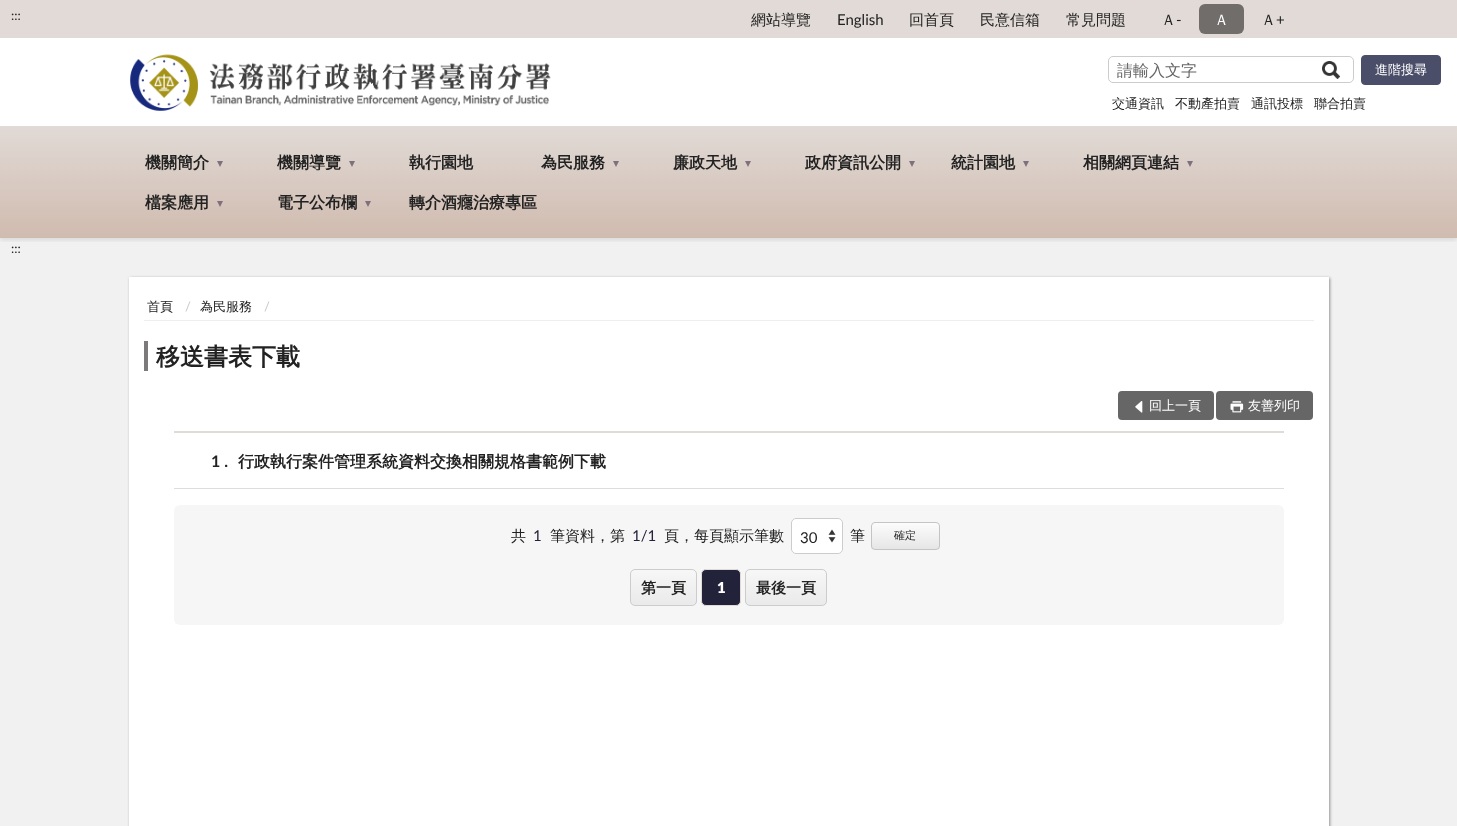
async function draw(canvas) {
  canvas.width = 1457
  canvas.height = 826
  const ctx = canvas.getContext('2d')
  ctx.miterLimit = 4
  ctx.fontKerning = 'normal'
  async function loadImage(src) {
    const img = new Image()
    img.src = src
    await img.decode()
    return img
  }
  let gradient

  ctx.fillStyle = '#fff'
  ctx.fillRect(0, 0, 1457, 826)
  ctx.fillStyle = '#f1f1f1'
  ctx.fillRect(0, 238, 1457, 588)
  ctx.save()
  ctx.beginPath()
  ctx.rect(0, 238, 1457, 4)
  ctx.clip()
  ctx.fillStyle = '#0000001a'
  ctx.filter = 'blur(2.5px)'
  ctx.beginPath()
  ctx.rect(0, 2, 1457, 238)
  ctx.fill()
  ctx.filter = 'none'
  ctx.restore()
  ctx.fillStyle = '#e1dad6'
  ctx.fillRect(0, 0, 1457, 38)
  ctx.font = '13px Lato'
  ctx.fillStyle = '#222'
  ctx.fillText(':::', 11, 20)
  ctx.font = '500 15px WenQuanYi Zen Hei'
  ctx.fillText('網站導覽', 751, 25)
  ctx.font = '15px Lato'
  ctx.fillText('English', 837, 25)
  ctx.font = '500 15px WenQuanYi Zen Hei'
  ctx.fillText('回首頁', 909, 25)
  ctx.fillText('民意信箱', 980, 25)
  ctx.fillText('常見問題', 1066, 25)
  ctx.fillText('Ａ', 1161, 25)
  ctx.font = '15px Lato'
  ctx.fillText('-', 1176, 25)
  ctx.fillStyle = '#716d6b'
  ctx.beginPath()
  ctx.roundRect(1199, 4, 45, 30, 6)
  ctx.fill()
  ctx.font = '500 15px WenQuanYi Zen Hei'
  ctx.fillStyle = '#fff'
  ctx.fillText('Ａ', 1214, 25)
  ctx.fillStyle = '#222'
  ctx.fillText('Ａ', 1261, 25)
  ctx.font = '15px Lato'
  ctx.fillText('+', 1276, 25)
  ctx.drawImage(await loadImage('image0.png'), 130, 54, 421, 57)
  ctx.beginPath()
  ctx.roundRect(1108.5, 56.5, 245, 26, 4.5)
  ctx.strokeStyle = '#ccc'
  ctx.stroke()
  ctx.font = '500 16px WenQuanYi Zen Hei'
  ctx.fillStyle = '#666'
  ctx.fillText('請輸入文字', 1117, 76)
  ctx.drawImage(await loadImage('image1.png'), 1322, 61, 18, 18)
  ctx.fillStyle = '#4a4e69'
  ctx.beginPath()
  ctx.roundRect(1361.5, 55.5, 79, 29, 3.5)
  ctx.fill()
  ctx.strokeStyle = '#4a4e69'
  ctx.stroke()
  ctx.font = '500 13px WenQuanYi Zen Hei'
  ctx.fillStyle = '#fff'
  ctx.fillText('進階搜尋', 1375, 74)
  ctx.fillStyle = '#222'
  ctx.fillText('交通資訊', 1112, 108)
  ctx.fillText('不動產拍賣', 1175, 108)
  ctx.fillText('通訊投標', 1251, 108)
  ctx.fillText('聯合拍賣', 1314, 108)
  gradient = ctx.createLinearGradient(729, 126, 729, 238)
  gradient.addColorStop(0, '#e1dad6')
  gradient.addColorStop(1, '#d0bbaf')
  ctx.fillStyle = gradient
  ctx.fillRect(0, 126, 1457, 112)
  ctx.font = 'bold 16px WenQuanYi Zen Hei'
  ctx.fillStyle = '#222'
  ctx.fillText('機關簡介', 145, 168)
  ctx.fillStyle = '#80707d'
  ctx.beginPath()
  ctx.moveTo(217, 161)
  ctx.lineTo(223, 161)
  ctx.lineTo(220, 167)
  ctx.closePath()
  ctx.fill()
  ctx.fillStyle = '#222'
  ctx.fillText('機關導覽', 277, 168)
  ctx.fillStyle = '#80707d'
  ctx.beginPath()
  ctx.moveTo(349, 161)
  ctx.lineTo(355, 161)
  ctx.lineTo(352, 167)
  ctx.closePath()
  ctx.fill()
  ctx.fillStyle = '#222'
  ctx.fillText('執行園地', 409, 168)
  ctx.fillText('為民服務', 541, 168)
  ctx.fillStyle = '#80707d'
  ctx.beginPath()
  ctx.moveTo(613, 161)
  ctx.lineTo(619, 161)
  ctx.lineTo(616, 167)
  ctx.closePath()
  ctx.fill()
  ctx.fillStyle = '#222'
  ctx.fillText('廉政天地', 673, 168)
  ctx.fillStyle = '#80707d'
  ctx.beginPath()
  ctx.moveTo(745, 161)
  ctx.lineTo(751, 161)
  ctx.lineTo(748, 167)
  ctx.closePath()
  ctx.fill()
  ctx.fillStyle = '#222'
  ctx.fillText('政府資訊公開', 805, 168)
  ctx.fillStyle = '#80707d'
  ctx.beginPath()
  ctx.moveTo(909, 161)
  ctx.lineTo(915, 161)
  ctx.lineTo(912, 167)
  ctx.closePath()
  ctx.fill()
  ctx.fillStyle = '#222'
  ctx.fillText('統計園地', 951, 168)
  ctx.fillStyle = '#80707d'
  ctx.beginPath()
  ctx.moveTo(1023, 161)
  ctx.lineTo(1029, 161)
  ctx.lineTo(1026, 167)
  ctx.closePath()
  ctx.fill()
  ctx.fillStyle = '#222'
  ctx.fillText('相關網頁連結', 1083, 168)
  ctx.fillStyle = '#80707d'
  ctx.beginPath()
  ctx.moveTo(1187, 161)
  ctx.lineTo(1193, 161)
  ctx.lineTo(1190, 167)
  ctx.closePath()
  ctx.fill()
  ctx.fillStyle = '#222'
  ctx.fillText('檔案應用', 145, 208)
  ctx.fillStyle = '#80707d'
  ctx.beginPath()
  ctx.moveTo(217, 201)
  ctx.lineTo(223, 201)
  ctx.lineTo(220, 207)
  ctx.closePath()
  ctx.fill()
  ctx.fillStyle = '#222'
  ctx.fillText('電子公布欄', 277, 208)
  ctx.fillStyle = '#80707d'
  ctx.beginPath()
  ctx.moveTo(365, 201)
  ctx.lineTo(371, 201)
  ctx.lineTo(368, 207)
  ctx.closePath()
  ctx.fill()
  ctx.fillStyle = '#222'
  ctx.fillText('轉介酒癮治療專區', 409, 208)
  ctx.font = '13px Lato'
  ctx.fillText(':::', 11, 253)
  ctx.fillStyle = '#00000066'
  ctx.filter = 'blur(1.5px)'
  ctx.beginPath()
  ctx.rect(130, 278, 1200, 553)
  ctx.fill()
  ctx.filter = 'none'
  ctx.fillStyle = '#fff'
  ctx.fillRect(129, 277, 1200, 549)
  ctx.fillStyle = '#eee'
  ctx.fillRect(144, 320, 1170, 1)
  ctx.font = '500 13px WenQuanYi Zen Hei'
  ctx.fillStyle = '#222'
  ctx.fillText('首頁', 147, 311)
  ctx.font = '13px Lato'
  ctx.fillStyle = '#ccc'
  ctx.fillText('/', 185, 311)
  ctx.font = '500 13px WenQuanYi Zen Hei'
  ctx.fillStyle = '#222'
  ctx.fillText('為民服務', 200, 311)
  ctx.font = '13px Lato'
  ctx.fillStyle = '#ccc'
  ctx.fillText('/', 264, 311)
  ctx.fillStyle = '#7c7a7a'
  ctx.fillRect(144, 341, 4, 30)
  ctx.font = 'bold 24px WenQuanYi Zen Hei'
  ctx.fillStyle = '#222'
  ctx.fillText('移送書表下載', 156, 365)
  ctx.fillStyle = '#666'
  ctx.beginPath()
  ctx.roundRect(1118, 391, 96, 29, 4)
  ctx.fill()
  ctx.drawImage(await loadImage('image2.png'), 1135, 401, 8, 12)
  ctx.font = '500 13px WenQuanYi Zen Hei'
  ctx.fillStyle = '#fff'
  ctx.fillText('回上一頁', 1149, 410)
  ctx.fillStyle = '#666'
  ctx.beginPath()
  ctx.roundRect(1216, 391, 97, 29, 4)
  ctx.fill()
  ctx.drawImage(await loadImage('image3.png'), 1230, 401, 14, 12)
  ctx.fillStyle = '#fff'
  ctx.fillText('友善列印', 1248, 410)
  ctx.fillStyle = '#e1dad6'
  ctx.fillRect(174, 431, 1110, 2)
  ctx.fillStyle = '#ddd'
  ctx.fillRect(174, 488, 1110, 1)
  ctx.font = 'bold 16px Lato'
  ctx.fillStyle = '#222'
  ctx.fillText('1 .', 211, 467)
  ctx.font = 'bold 16px WenQuanYi Zen Hei'
  ctx.fillText('行政執行案件管理系統資料交換相關規格書範例下載', 238, 467)
  ctx.fillStyle = '#f6f6f6'
  ctx.beginPath()
  ctx.roundRect(174, 505, 1110, 120, 6)
  ctx.fill()
  ctx.font = '500 15px WenQuanYi Zen Hei'
  ctx.fillStyle = '#222'
  ctx.fillText('共', 511, 541)
  ctx.font = '15px Lato'
  ctx.fillStyle = '#22223b'
  ctx.fillText('1', 533, 541)
  ctx.font = '500 15px WenQuanYi Zen Hei'
  ctx.fillStyle = '#222'
  ctx.fillText('筆資料，第', 550, 541)
  ctx.font = '15px Lato'
  ctx.fillStyle = '#22223b'
  ctx.fillText('1/1', 632, 541)
  ctx.font = '500 15px WenQuanYi Zen Hei'
  ctx.fillStyle = '#222'
  ctx.fillText('頁，每頁顯示筆數', 664, 541)
  ctx.fillStyle = '#fff'
  ctx.beginPath()
  ctx.roundRect(791, 518, 52, 36, 5)
  ctx.fill()
  ctx.drawImage(await loadImage('image4.png'), 828, 529, 8, 14)
  ctx.beginPath()
  ctx.roundRect(791.5, 518.5, 51, 35, 4.5)
  ctx.strokeStyle = '#ccc'
  ctx.stroke()
  ctx.font = '15px Lato'
  ctx.fillStyle = '#222'
  ctx.fillText('30', 800, 543)
  ctx.font = '500 15px WenQuanYi Zen Hei'
  ctx.fillText('筆', 850, 541)
  ctx.save()
  ctx.beginPath()
  ctx.roundRect(871, 522, 69, 28, 4)
  ctx.clip()
  gradient = ctx.createLinearGradient(906, 523, 906, 549)
  gradient.addColorStop(0, '#fcfcfc')
  gradient.addColorStop(1, '#e6e6e6')
  ctx.fillStyle = gradient
  ctx.fillRect(871, 523, 69, 26)
  ctx.restore()
  ctx.beginPath()
  ctx.roundRect(871.5, 522.5, 68, 27, 3.5)
  ctx.strokeStyle = '#c4c4c4'
  ctx.stroke()
  ctx.font = '500 11px WenQuanYi Zen Hei'
  ctx.fillText('確定', 894, 539)
  ctx.save()
  ctx.beginPath()
  ctx.roundRect(630, 569, 67, 37, 5)
  ctx.clip()
  gradient = ctx.createLinearGradient(664, 570, 664, 605)
  gradient.addColorStop(0, '#f7f7f7')
  gradient.addColorStop(1, '#eaeaea')
  ctx.fillStyle = gradient
  ctx.fillRect(630, 570, 67, 35)
  ctx.restore()
  ctx.beginPath()
  ctx.roundRect(630.5, 569.5, 66, 36, 4.5)
  ctx.strokeStyle = '#ccc'
  ctx.stroke()
  ctx.font = 'bold 15px WenQuanYi Zen Hei'
  ctx.fillText('第一頁', 641, 593)
  ctx.fillStyle = '#22223b'
  ctx.beginPath()
  ctx.roundRect(701.5, 569.5, 39, 36, 4.5)
  ctx.fill()
  ctx.strokeStyle = '#e1dad6'
  ctx.stroke()
  ctx.font = '800 15px Lato'
  ctx.fillStyle = '#fff'
  ctx.fillText('1', 717, 593)
  ctx.save()
  ctx.beginPath()
  ctx.roundRect(745, 569, 82, 37, 5)
  ctx.clip()
  gradient = ctx.createLinearGradient(786, 570, 786, 605)
  gradient.addColorStop(0, '#f7f7f7')
  gradient.addColorStop(1, '#eaeaea')
  ctx.fillStyle = gradient
  ctx.fillRect(745, 570, 82, 35)
  ctx.restore()
  ctx.beginPath()
  ctx.roundRect(745.5, 569.5, 81, 36, 4.5)
  ctx.strokeStyle = '#ccc'
  ctx.stroke()
  ctx.font = 'bold 15px WenQuanYi Zen Hei'
  ctx.fillStyle = '#222'
  ctx.fillText('最後一頁', 756, 593)
}

draw(document.querySelector('canvas'))
